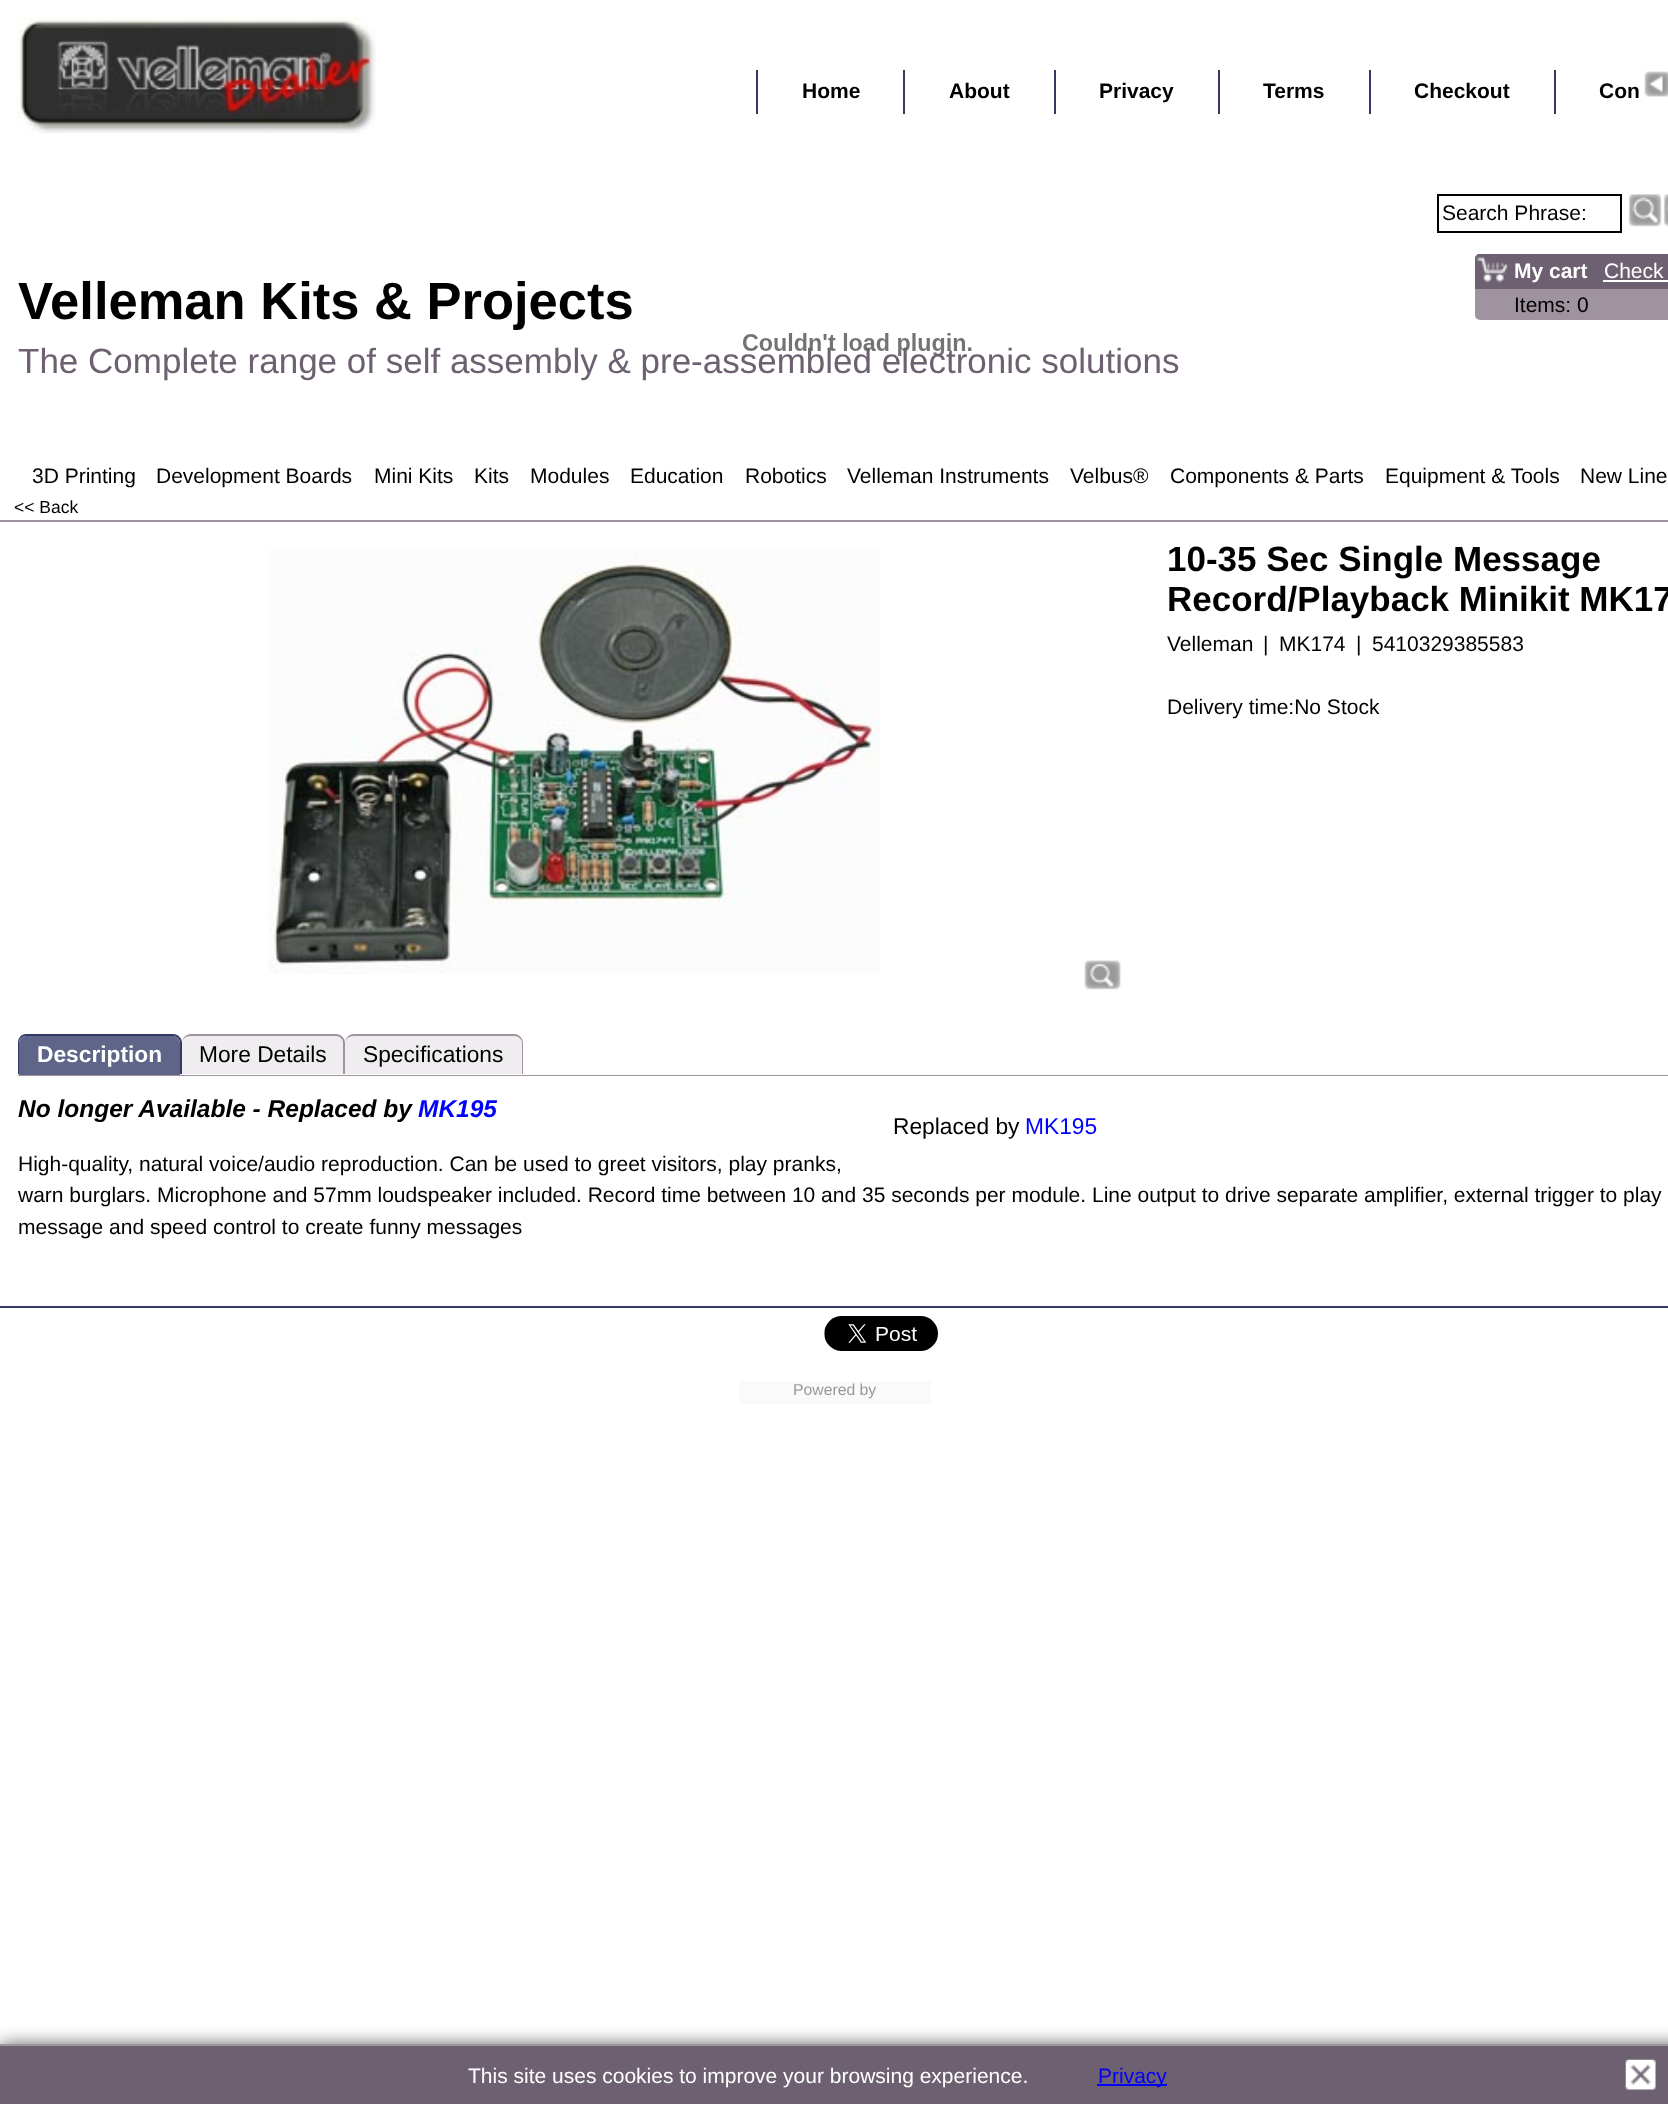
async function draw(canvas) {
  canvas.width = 1668
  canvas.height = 2104
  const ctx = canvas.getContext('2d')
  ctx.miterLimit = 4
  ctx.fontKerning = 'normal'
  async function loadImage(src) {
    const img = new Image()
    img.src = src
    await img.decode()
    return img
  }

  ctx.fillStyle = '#fff'
  ctx.fillRect(0, 0, 1668, 2104)
  ctx.drawImage(await loadImage('image0.png'), 17, 17, 359, 117)
  ctx.fillStyle = '#333865'
  ctx.fillRect(756, 70, 2, 44)
  ctx.font = 'bold 21px Liberation Sans'
  ctx.fillStyle = '#000'
  ctx.fillText('Home', 802, 98)
  ctx.fillStyle = '#333865'
  ctx.fillRect(903, 70, 2, 44)
  ctx.fillStyle = '#000'
  ctx.fillText('About', 949, 98)
  ctx.fillStyle = '#333865'
  ctx.fillRect(1054, 70, 2, 44)
  ctx.fillStyle = '#000'
  ctx.fillText('Privacy', 1099, 98)
  ctx.fillStyle = '#333865'
  ctx.fillRect(1218, 70, 2, 44)
  ctx.fillStyle = '#000'
  ctx.fillText('Terms', 1263, 98)
  ctx.fillStyle = '#333865'
  ctx.fillRect(1369, 70, 2, 44)
  ctx.fillStyle = '#000'
  ctx.fillText('Checkout', 1414, 98)
  ctx.fillStyle = '#333865'
  ctx.fillRect(1554, 70, 2, 44)
  ctx.fillStyle = '#000'
  ctx.fillText('Con', 1599, 98)
  ctx.drawImage(await loadImage('image1.png'), 1644, 71, 24, 26)
  ctx.strokeStyle = '#000'
  ctx.lineWidth = 2
  ctx.strokeRect(1438, 195, 183, 37)
  ctx.font = '21px Liberation Sans'
  ctx.fillText('Search Phrase:', 1442, 220)
  ctx.drawImage(await loadImage('image2.png'), 1628, 194, 34, 33)
  ctx.drawImage(await loadImage('image3.png'), 1663, 194, 5, 33)
  ctx.font = 'bold 52.5px Liberation Sans'
  ctx.fillText('Velleman Kits & Projects', 18, 319)
  ctx.fillStyle = '#9f939f'
  ctx.beginPath()
  ctx.roundRect(1475, 254, 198, 66, 5)
  ctx.fill()
  ctx.fillStyle = '#6c6071'
  ctx.beginPath()
  ctx.moveTo(1480, 254)
  ctx.lineTo(1668, 254)
  ctx.bezierCurveTo(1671, 254, 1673, 256, 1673, 259)
  ctx.lineTo(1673, 289)
  ctx.lineTo(1475, 289)
  ctx.lineTo(1475, 259)
  ctx.bezierCurveTo(1475, 256, 1477, 254, 1480, 254)
  ctx.closePath()
  ctx.fill()
  ctx.drawImage(await loadImage('image4.png'), 1476, 256, 32, 27)
  ctx.font = 'bold 21px Liberation Sans'
  ctx.fillStyle = '#fff'
  ctx.fillText('My cart', 1514, 278)
  ctx.font = '21px Liberation Sans'
  ctx.fillText('Check', 1604, 278)
  ctx.fillRect(1603, 280, 65, 2)
  ctx.fillStyle = '#000'
  ctx.fillText('Items: 0', 1514, 312)
  ctx.drawImage(await loadImage('image5.png'), 743, 333, 229, 23)
  ctx.font = '35px Liberation Sans'
  ctx.fillStyle = '#6c6071'
  ctx.fillText('The Complete range of self assembly & pre-assembled electronic solutions', 18, 373)
  ctx.font = '21px Liberation Sans'
  ctx.fillStyle = '#000'
  ctx.fillText('3D Printing', 32, 483)
  ctx.fillText('Development Boards', 156, 483)
  ctx.fillText('Mini Kits', 374, 483)
  ctx.fillText('Kits', 474, 483)
  ctx.fillText('Modules', 530, 483)
  ctx.fillText('Education', 630, 483)
  ctx.fillText('Robotics', 745, 483)
  ctx.fillText('Velleman Instruments', 847, 483)
  ctx.fillText('Velbus®', 1070, 483)
  ctx.fillText('Components & Parts', 1170, 483)
  ctx.fillText('Equipment & Tools', 1385, 483)
  ctx.fillText('New Line', 1580, 483)
  ctx.fillStyle = '#9f939f'
  ctx.fillRect(0, 520, 1668, 2)
  ctx.font = '17.5px Liberation Sans'
  ctx.fillStyle = '#000'
  ctx.fillText('<< Back', 14, 513)
  ctx.drawImage(await loadImage('image6.png'), 268, 549, 613, 425)
  ctx.drawImage(await loadImage('image7.png'), 1084, 960, 37, 30)
  ctx.font = 'bold 35px Liberation Sans'
  ctx.fillText('10-35 Sec Single Message', 1167, 571)
  ctx.fillText('Record/Playback Minikit MK17', 1167, 611)
  ctx.font = '21px Liberation Sans'
  ctx.fillText('Velleman', 1167, 651)
  ctx.fillText('|', 1263, 651)
  ctx.fillText('MK174', 1279, 651)
  ctx.fillText('|', 1356, 651)
  ctx.fillText('5410329385583', 1372, 651)
  ctx.fillText('Delivery time:No Stock', 1167, 714)
  ctx.fillStyle = '#9f939f'
  ctx.fillRect(18, 1075, 1650, 1)
  ctx.fillStyle = '#5e6588'
  ctx.beginPath()
  ctx.roundRect(19, 1036, 161, 39, [7, 7, 0, 0])
  ctx.fill()
  ctx.fillStyle = '#333865'
  ctx.beginPath()
  ctx.moveTo(26, 1034)
  ctx.lineTo(173, 1034)
  ctx.bezierCurveTo(178, 1034, 182, 1038, 182, 1043)
  ctx.lineTo(182, 1074)
  ctx.lineTo(18, 1074)
  ctx.lineTo(18, 1043)
  ctx.bezierCurveTo(18, 1038, 21, 1034, 26, 1034)
  ctx.closePath()
  ctx.moveTo(26, 1036)
  ctx.lineTo(173, 1036)
  ctx.bezierCurveTo(177, 1036, 180, 1039, 180, 1043)
  ctx.lineTo(180, 1074)
  ctx.lineTo(19, 1074)
  ctx.lineTo(19, 1043)
  ctx.bezierCurveTo(19, 1039, 22, 1036, 26, 1036)
  ctx.closePath()
  ctx.fill('evenodd')
  ctx.font = 'bold 22.75px Liberation Sans'
  ctx.fillStyle = '#fff'
  ctx.fillText('Description', 37, 1062)
  ctx.fillStyle = '#efedef'
  ctx.beginPath()
  ctx.moveTo(191, 1036)
  ctx.lineTo(336, 1036)
  ctx.bezierCurveTo(340, 1036, 343, 1039, 343, 1043)
  ctx.lineTo(343, 1074)
  ctx.lineTo(182, 1074)
  ctx.lineTo(182, 1043)
  ctx.bezierCurveTo(182, 1039, 186, 1036, 191, 1036)
  ctx.closePath()
  ctx.fill()
  ctx.fillStyle = '#9f939f'
  ctx.beginPath()
  ctx.moveTo(191, 1034)
  ctx.lineTo(336, 1034)
  ctx.bezierCurveTo(341, 1034, 345, 1038, 345, 1043)
  ctx.lineTo(345, 1074)
  ctx.lineTo(182, 1074)
  ctx.lineTo(182, 1043)
  ctx.bezierCurveTo(182, 1038, 186, 1034, 191, 1034)
  ctx.closePath()
  ctx.moveTo(191, 1036)
  ctx.lineTo(336, 1036)
  ctx.bezierCurveTo(340, 1036, 343, 1039, 343, 1043)
  ctx.lineTo(343, 1074)
  ctx.lineTo(182, 1074)
  ctx.lineTo(182, 1043)
  ctx.bezierCurveTo(182, 1039, 186, 1036, 191, 1036)
  ctx.closePath()
  ctx.fill('evenodd')
  ctx.font = '22.75px Liberation Sans'
  ctx.fillStyle = '#000'
  ctx.fillText('More Details', 199, 1062)
  ctx.fillStyle = '#efedef'
  ctx.beginPath()
  ctx.moveTo(354, 1036)
  ctx.lineTo(514, 1036)
  ctx.bezierCurveTo(518, 1036, 522, 1039, 522, 1043)
  ctx.lineTo(522, 1074)
  ctx.lineTo(345, 1074)
  ctx.lineTo(345, 1043)
  ctx.bezierCurveTo(345, 1039, 349, 1036, 354, 1036)
  ctx.closePath()
  ctx.fill()
  ctx.fillStyle = '#9f939f'
  ctx.beginPath()
  ctx.moveTo(354, 1034)
  ctx.lineTo(514, 1034)
  ctx.bezierCurveTo(519, 1034, 523, 1038, 523, 1043)
  ctx.lineTo(523, 1074)
  ctx.lineTo(345, 1074)
  ctx.lineTo(345, 1043)
  ctx.bezierCurveTo(345, 1038, 349, 1034, 354, 1034)
  ctx.closePath()
  ctx.moveTo(354, 1036)
  ctx.lineTo(514, 1036)
  ctx.bezierCurveTo(518, 1036, 522, 1039, 522, 1043)
  ctx.lineTo(522, 1074)
  ctx.lineTo(345, 1074)
  ctx.lineTo(345, 1043)
  ctx.bezierCurveTo(345, 1039, 349, 1036, 354, 1036)
  ctx.closePath()
  ctx.fill('evenodd')
  ctx.fillStyle = '#000'
  ctx.fillText('Specifications', 363, 1062)
  ctx.font = 'italic bold 24.5px Liberation Sans'
  ctx.fillText('No longer Available - Replaced by', 18, 1117)
  ctx.fillStyle = '#00f'
  ctx.fillText('MK195', 418, 1117)
  ctx.font = '21px Liberation Sans'
  ctx.fillStyle = '#000'
  ctx.fillText('High-quality, natural voice/audio reproduction. Can be used to greet visitors, play pranks,', 18, 1171)
  ctx.fillText('warn burglars. Microphone and 57mm loudspeaker included. Record time between 10 and 35 seconds per module. Line output to drive separate amplifier, external trigger to play', 18, 1202)
  ctx.fillText('message and speed control to create funny messages', 18, 1234)
  ctx.font = '22.75px Liberation Sans'
  ctx.fillText('Replaced by', 893, 1134)
  ctx.fillStyle = '#00f'
  ctx.fillText('MK195', 1025, 1134)
  ctx.fillStyle = '#333865'
  ctx.fillRect(0, 1306, 1668, 2)
  ctx.drawImage(await loadImage('image8.png'), 824, 1316, 114, 35)
  ctx.fillStyle = '#fafafa'
  ctx.fillRect(739, 1381, 192, 23)
  ctx.font = '15.75px Liberation Sans'
  ctx.fillStyle = '#999'
  ctx.fillText('Powered by', 793, 1395)
  ctx.fillStyle = '#666'
  ctx.filter = 'blur(9px)'
  ctx.beginPath()
  ctx.rect(0, 2044, 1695, 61)
  ctx.fill()
  ctx.filter = 'none'
  ctx.fillStyle = '#6c6071'
  ctx.fillRect(0, 2046, 1668, 58)
  ctx.fillStyle = '#9f939f'
  ctx.fillRect(0, 2044, 1668, 2)
  ctx.font = '21px Liberation Sans'
  ctx.fillStyle = '#fff'
  ctx.fillText('This site uses cookies to improve your browsing experience.', 468, 2083)
  ctx.fillStyle = '#00f'
  ctx.fillRect(1097, 2084, 70, 2)
  ctx.fillText('Privacy', 1098, 2083)
  ctx.drawImage(await loadImage('image9.png'), 1625, 2059, 31, 31)
}

draw(document.querySelector('canvas'))
